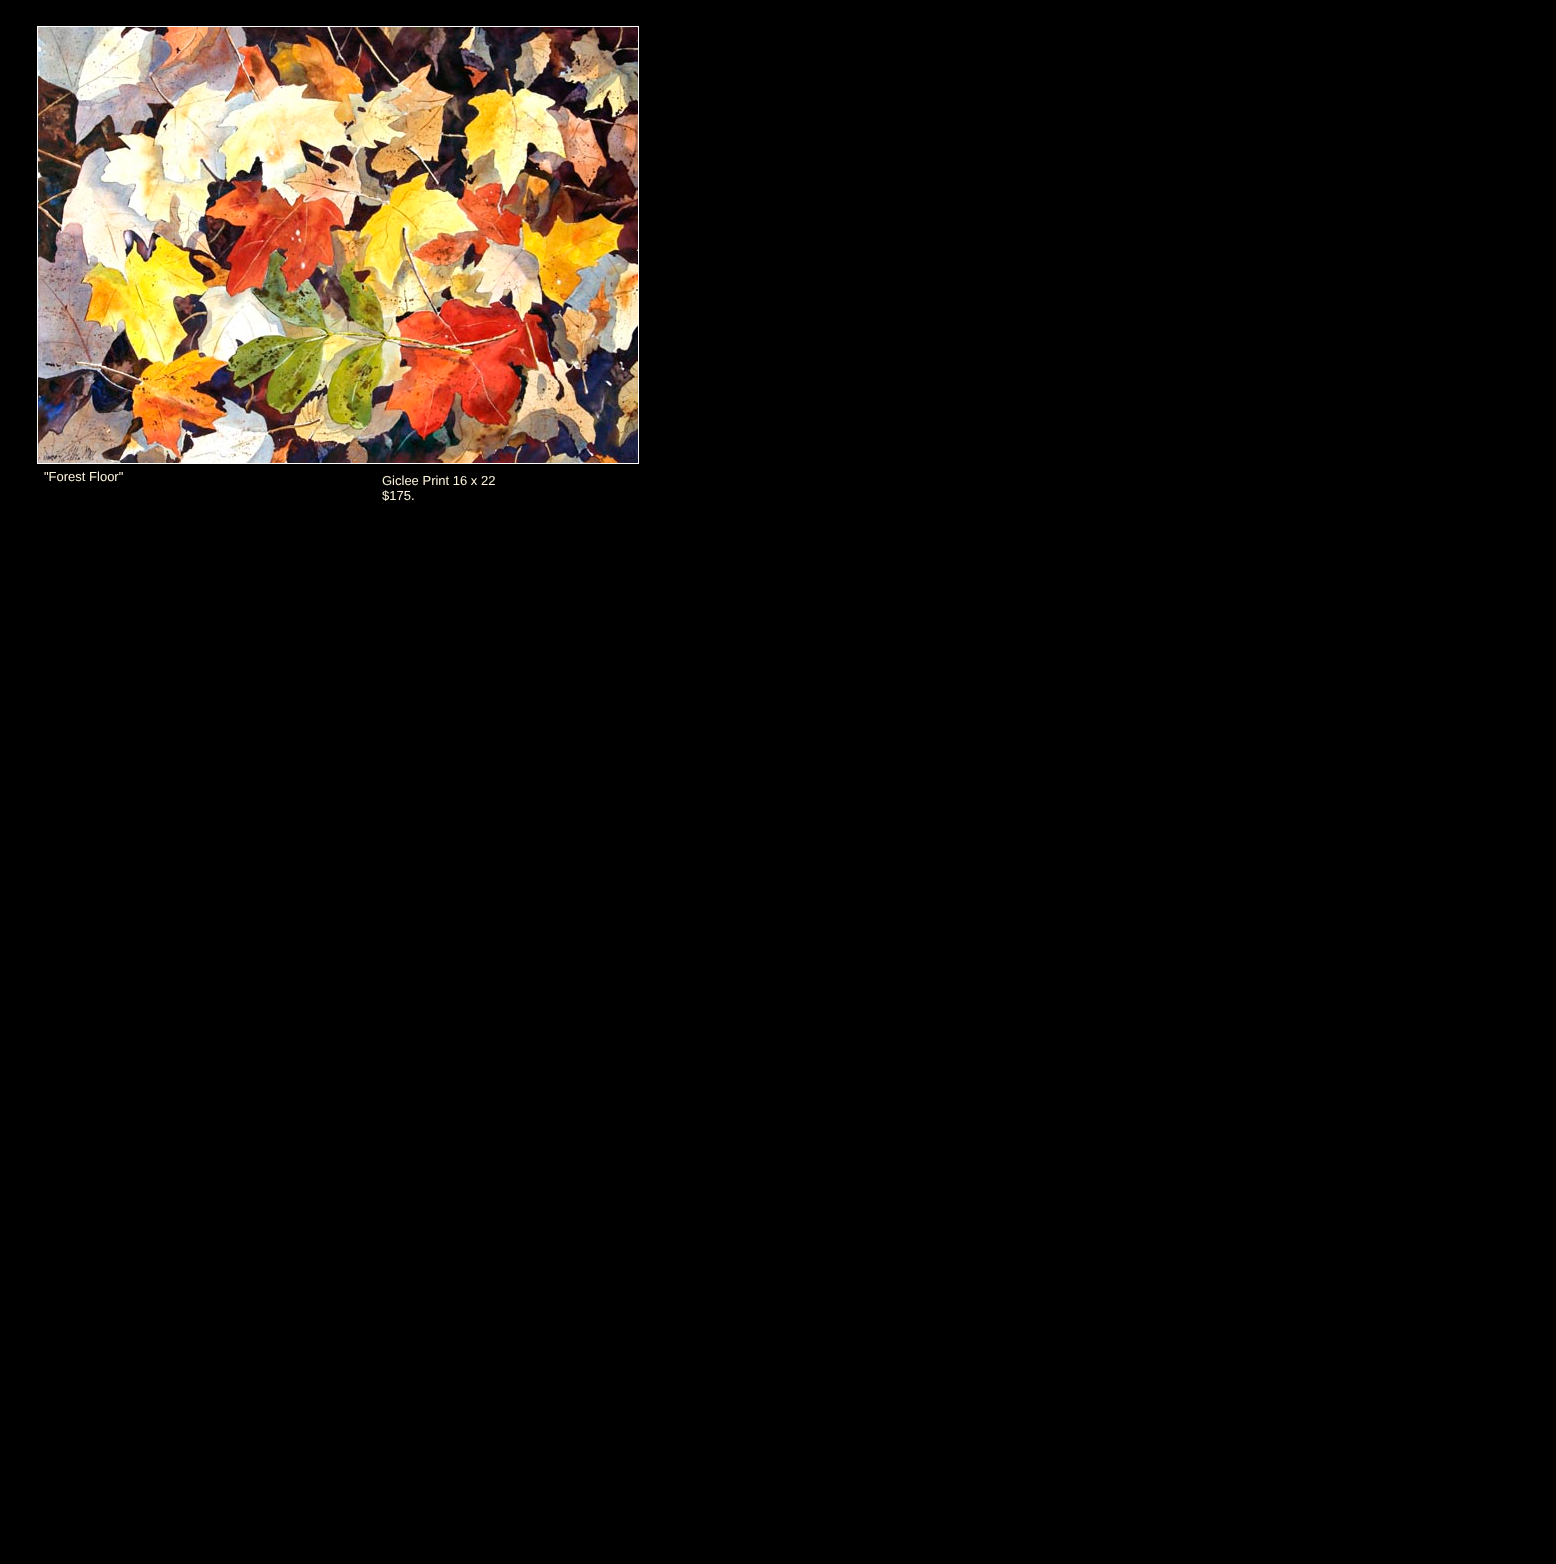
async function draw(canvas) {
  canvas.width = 1556
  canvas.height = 1564
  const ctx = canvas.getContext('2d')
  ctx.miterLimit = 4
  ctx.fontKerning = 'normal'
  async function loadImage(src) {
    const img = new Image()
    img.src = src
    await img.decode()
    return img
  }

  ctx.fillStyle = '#000'
  ctx.fillRect(0, 0, 1556, 1564)
  ctx.strokeStyle = '#fff'
  ctx.strokeRect(37.5, 26.5, 601, 437)
  ctx.drawImage(await loadImage('image0.png'), 38, 27, 600, 436)
  ctx.font = '13px Liberation Sans'
  ctx.fillStyle = '#fdf4db'
  ctx.fillText('"Forest Floor"', 44, 481)
  ctx.fillText('Giclee Print 16 x 22', 382, 485)
  ctx.fillText('$175.', 382, 500)
}

draw(document.querySelector('canvas'))
